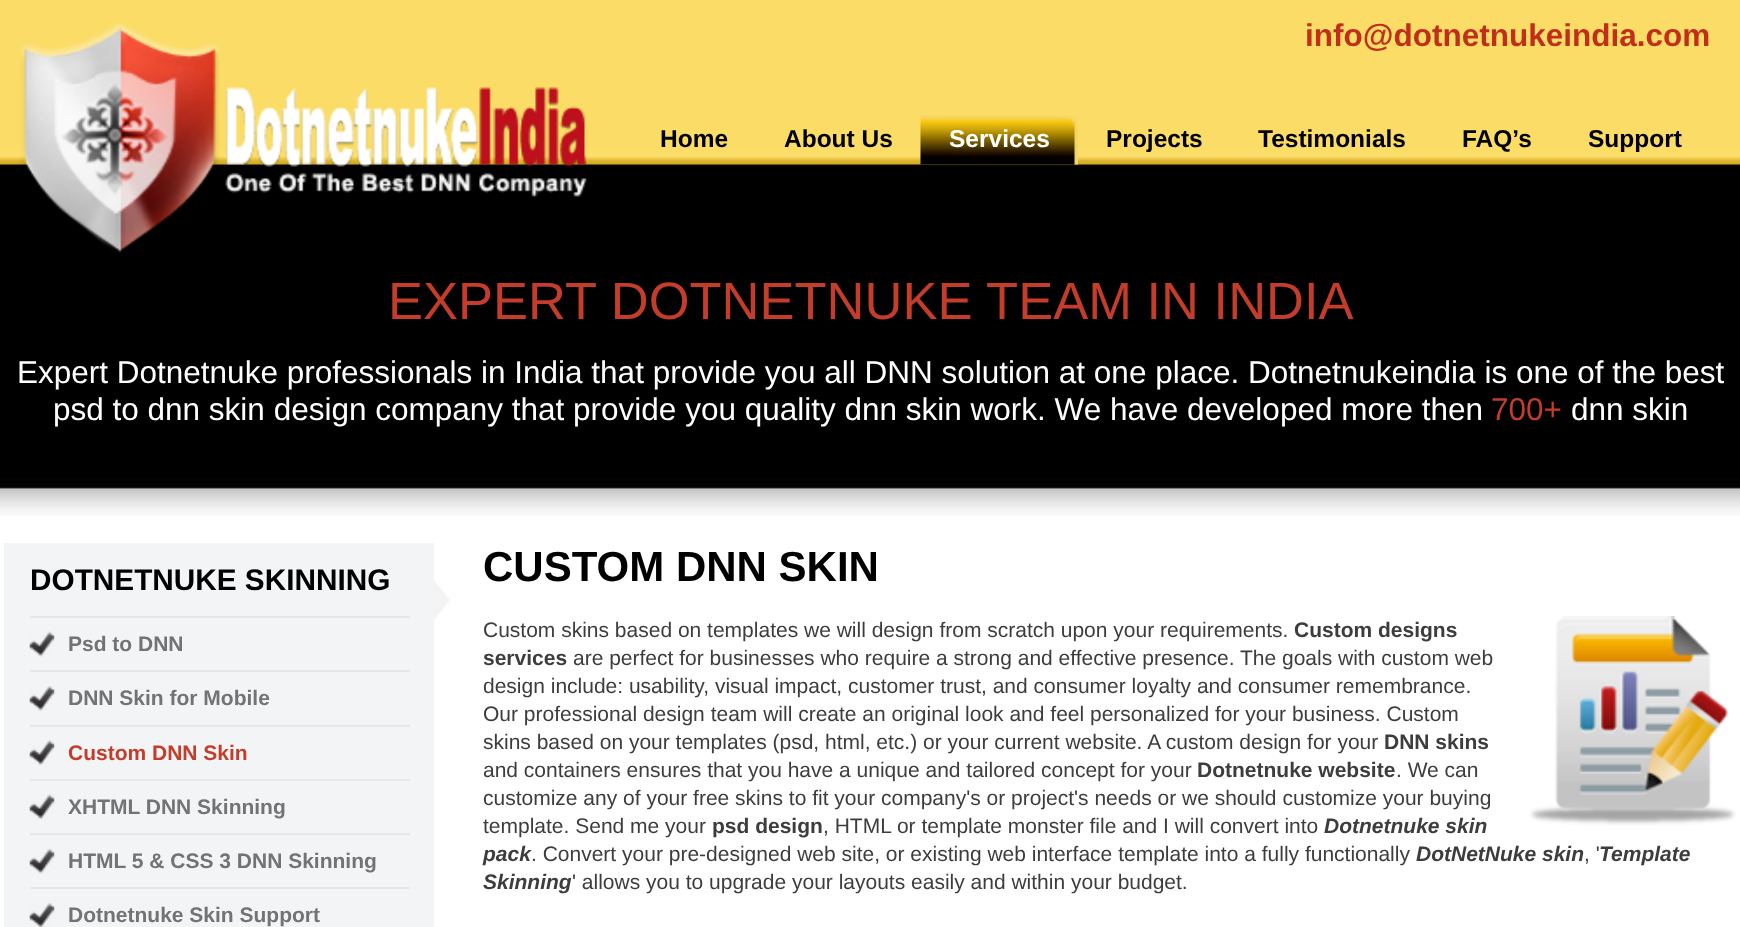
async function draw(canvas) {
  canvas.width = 1740
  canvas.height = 927
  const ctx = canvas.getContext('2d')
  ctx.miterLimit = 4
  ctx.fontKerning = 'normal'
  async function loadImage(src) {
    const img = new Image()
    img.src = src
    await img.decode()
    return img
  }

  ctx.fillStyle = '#fff'
  ctx.fillRect(0, 0, 1740, 927)
  ctx.drawImage(await loadImage('image0.png'), 0, 0, 1740, 516)
  ctx.drawImage(await loadImage('image1.png'), 19, 22, 568, 231)
  ctx.font = 'bold 31.5px Liberation Sans'
  ctx.fillStyle = '#c02f1b'
  ctx.fillText('info@dotnetnukeindia.com', 1305, 46)
  ctx.font = 'bold 24.5px Liberation Sans'
  ctx.fillStyle = '#000'
  ctx.fillText('Home', 660, 147)
  ctx.fillText('About Us', 784, 147)
  ctx.drawImage(await loadImage('image2.png'), 920, 115, 158, 50)
  ctx.fillStyle = '#fff'
  ctx.fillText('Services', 949, 147)
  ctx.fillStyle = '#000'
  ctx.fillText('Projects', 1106, 147)
  ctx.fillText('Testimonials', 1258, 147)
  ctx.fillText('FAQ’s', 1462, 147)
  ctx.fillText('Support', 1588, 147)
  ctx.font = '52.5px Liberation Sans'
  ctx.fillStyle = '#c43d2a'
  ctx.fillText('EXPERT DOTNETNUKE TEAM IN INDIA', 388, 319)
  ctx.font = '31.5px Liberation Sans'
  ctx.fillStyle = '#fff'
  ctx.fillText('Expert Dotnetnuke professionals in India that provide you all DNN solution at one place. Dotnetnukeindia is one of the best', 17, 383)
  ctx.fillText('psd to dnn skin design company that provide you quality dnn skin work. We have developed more then', 53, 420)
  ctx.fillStyle = '#c43d2a'
  ctx.fillText('700+', 1491, 420)
  ctx.fillStyle = '#fff'
  ctx.fillText('dnn skin', 1571, 420)
  ctx.fillStyle = '#f2f4f6'
  ctx.fillRect(4, 543, 446, 384)
  ctx.drawImage(await loadImage('image3.png'), 432, 542, 18, 385)
  ctx.font = 'bold 29.75px Liberation Sans'
  ctx.fillStyle = '#000'
  ctx.fillText('DOTNETNUKE SKINNING', 30, 590)
  ctx.fillStyle = '#e7e7e7'
  ctx.fillRect(30, 616, 380, 2)
  ctx.drawImage(await loadImage('image4.png'), 29, 631, 26, 26)
  ctx.font = 'bold 21px Liberation Sans'
  ctx.fillStyle = '#737373'
  ctx.fillText('Psd to DNN', 68, 651)
  ctx.fillStyle = '#e7e7e7'
  ctx.fillRect(30, 670, 380, 2)
  ctx.drawImage(await loadImage('image5.png'), 29, 686, 26, 25)
  ctx.fillStyle = '#737373'
  ctx.fillText('DNN Skin for Mobile', 68, 705)
  ctx.fillStyle = '#e7e7e7'
  ctx.fillRect(30, 725, 380, 2)
  ctx.drawImage(await loadImage('image6.png'), 29, 740, 26, 25)
  ctx.fillStyle = '#c43d2a'
  ctx.fillText('Custom DNN Skin', 68, 760)
  ctx.fillStyle = '#e7e7e7'
  ctx.fillRect(30, 779, 380, 2)
  ctx.drawImage(await loadImage('image7.png'), 29, 794, 26, 25)
  ctx.fillStyle = '#737373'
  ctx.fillText('XHTML DNN Skinning', 68, 814)
  ctx.fillStyle = '#e7e7e7'
  ctx.fillRect(30, 833, 380, 2)
  ctx.drawImage(await loadImage('image4.png'), 29, 848, 26, 26)
  ctx.fillStyle = '#737373'
  ctx.fillText('HTML 5 & CSS 3 DNN Skinning', 68, 868)
  ctx.fillStyle = '#e7e7e7'
  ctx.fillRect(30, 887, 380, 2)
  ctx.drawImage(await loadImage('image8.png'), 29, 903, 26, 24)
  ctx.fillStyle = '#737373'
  ctx.fillText('Dotnetnuke Skin Support', 68, 922)
  ctx.font = 'bold 42px Liberation Sans'
  ctx.fillStyle = '#000'
  ctx.fillText('CUSTOM DNN SKIN', 483, 581)
  ctx.font = '21px Liberation Sans'
  ctx.fillStyle = '#3d3d3d'
  ctx.fillText('Custom skins based on templates we will design from scratch upon your requirements.', 483, 637)
  ctx.font = 'bold 21px Liberation Sans'
  ctx.fillText('Custom designs', 1294, 637)
  ctx.drawImage(await loadImage('image9.png'), 1529, 616, 207, 210)
  ctx.fillText('services', 483, 665)
  ctx.font = '21px Liberation Sans'
  ctx.fillText('are perfect for businesses who require a strong and effective presence. The goals with custom web', 573, 665)
  ctx.fillText('design include: usability, visual impact, customer trust, and consumer loyalty and consumer remembrance.', 483, 693)
  ctx.fillText('Our professional design team will create an original look and feel personalized for your business. Custom', 483, 721)
  ctx.fillText('skins based on your templates (psd, html, etc.) or your current website. A custom design for your', 483, 749)
  ctx.font = 'bold 21px Liberation Sans'
  ctx.fillText('DNN skins', 1384, 749)
  ctx.font = '21px Liberation Sans'
  ctx.fillText('and containers ensures that you have a unique and tailored concept for your', 483, 777)
  ctx.font = 'bold 21px Liberation Sans'
  ctx.fillText('Dotnetnuke website', 1197, 777)
  ctx.font = '21px Liberation Sans'
  ctx.fillText('. We can', 1396, 777)
  ctx.fillText('customize any of your free skins to fit your company\'s or project\'s needs or we should customize your buying', 483, 805)
  ctx.fillText('template. Send me your', 483, 833)
  ctx.font = 'bold 21px Liberation Sans'
  ctx.fillText('psd design', 712, 833)
  ctx.font = '21px Liberation Sans'
  ctx.fillText(', HTML or template monster file and I will convert into', 823, 833)
  ctx.font = 'italic bold 21px Liberation Sans'
  ctx.fillText('Dotnetnuke skin', 1324, 833)
  ctx.fillText('pack', 483, 861)
  ctx.font = '21px Liberation Sans'
  ctx.fillText('. Convert your pre-designed web site, or existing web interface template into a fully functionally', 531, 861)
  ctx.font = 'italic bold 21px Liberation Sans'
  ctx.fillText('DotNetNuke skin', 1416, 861)
  ctx.font = '21px Liberation Sans'
  ctx.fillText(', \'', 1584, 861)
  ctx.font = 'italic bold 21px Liberation Sans'
  ctx.fillText('Template', 1599, 861)
  ctx.fillText('Skinning', 483, 889)
  ctx.font = '21px Liberation Sans'
  ctx.fillText('\' allows you to upgrade your layouts easily and within your budget.', 572, 889)
}

draw(document.querySelector('canvas'))
